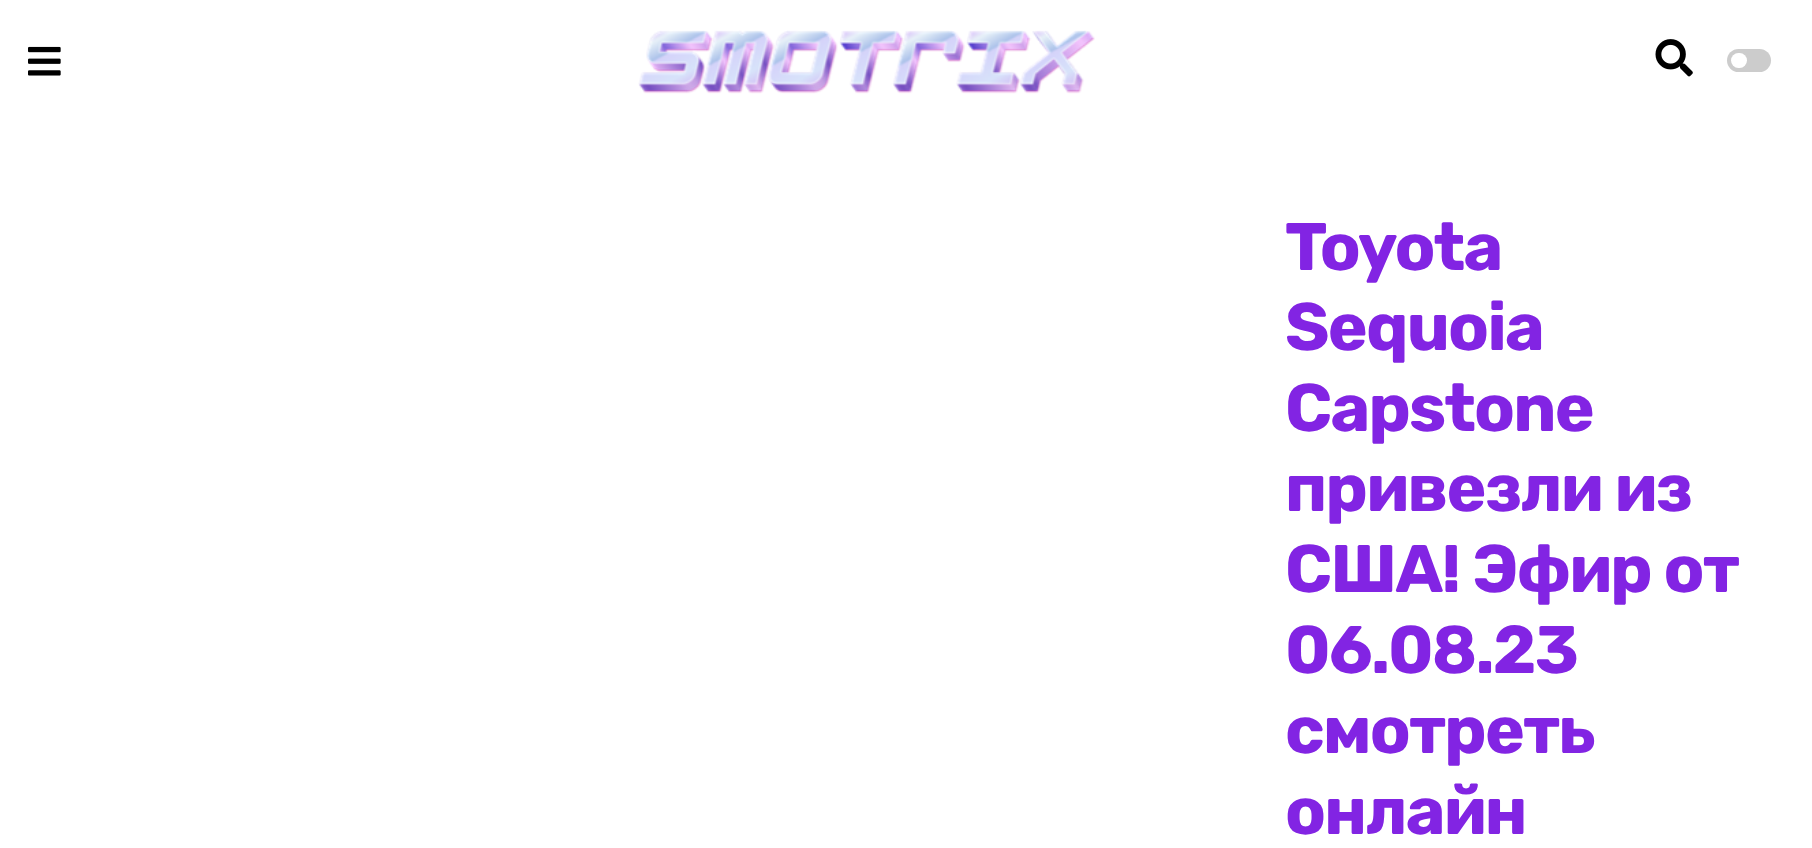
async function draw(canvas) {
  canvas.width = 1812
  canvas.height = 848
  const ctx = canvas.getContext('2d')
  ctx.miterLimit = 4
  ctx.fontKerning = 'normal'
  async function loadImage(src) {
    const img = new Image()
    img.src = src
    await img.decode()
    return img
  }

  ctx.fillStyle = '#fff'
  ctx.fillRect(0, 0, 1812, 848)
  ctx.drawImage(await loadImage('image0.png'), 28, 46, 33, 30)
  ctx.drawImage(await loadImage('image1.png'), 638, 30, 457, 64)
  ctx.drawImage(await loadImage('image2.png'), 1655, 39, 38, 38)
  ctx.fillStyle = '#ccc'
  ctx.beginPath()
  ctx.roundRect(1727, 49, 44, 23, 11.5)
  ctx.fill()
  ctx.fillStyle = '#fff'
  ctx.beginPath()
  ctx.roundRect(1731, 53, 16, 15, 7.5)
  ctx.fill()
  ctx.letterSpacing = '-1.75px'
  ctx.font = 'bold 67.25px Rubik'
  ctx.fillStyle = '#8224e3'
  ctx.fillText('Toyota', 1285, 270)
  ctx.fillText('Sequoia', 1285, 350)
  ctx.fillText('Capstone', 1285, 431)
  ctx.fillText('привезли из', 1285, 511)
  ctx.fillText('США! Эфир от', 1285, 592)
  ctx.fillText('06.08.23', 1285, 673)
  ctx.fillText('смотреть', 1285, 753)
  ctx.fillText('онлайн', 1285, 834)
}

draw(document.querySelector('canvas'))
